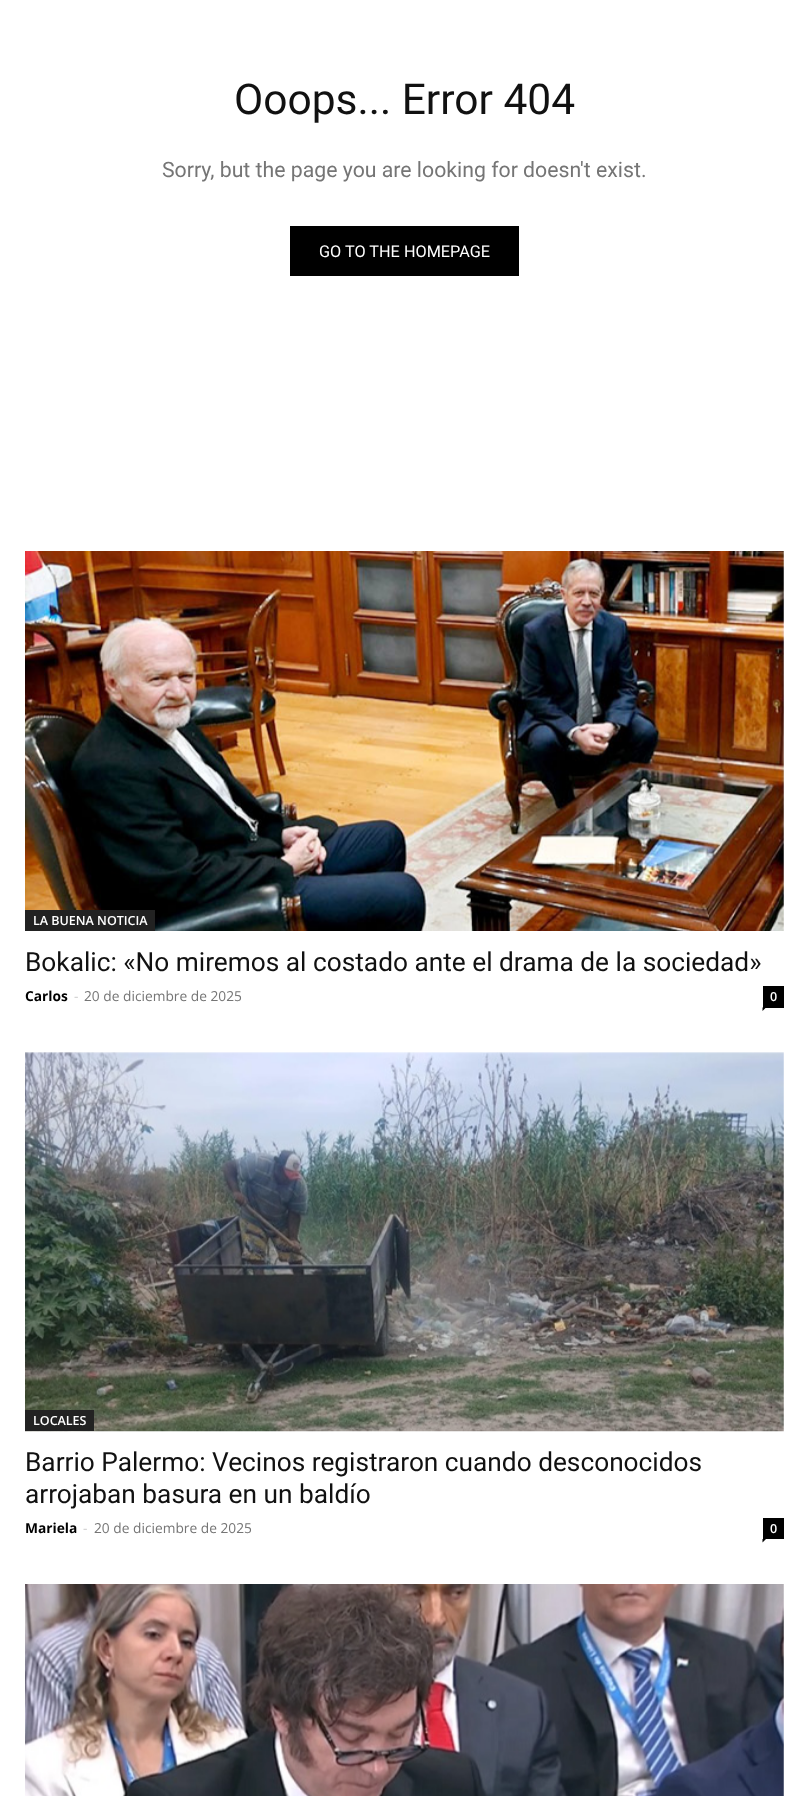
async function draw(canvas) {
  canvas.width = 808
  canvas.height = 1796
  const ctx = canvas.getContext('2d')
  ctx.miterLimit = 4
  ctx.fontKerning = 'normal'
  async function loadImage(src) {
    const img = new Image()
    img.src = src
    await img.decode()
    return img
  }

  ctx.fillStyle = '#fff'
  ctx.fillRect(0, 0, 808, 1796)
  ctx.font = '42.5px Roboto'
  ctx.fillStyle = '#111'
  ctx.fillText('Ooops... Error 404', 234, 114)
  ctx.font = '21.25px Roboto'
  ctx.fillStyle = '#757575'
  ctx.fillText('Sorry, but the page you are looking for doesn\'t exist.', 162, 177)
  ctx.fillStyle = '#000'
  ctx.fillRect(290, 226, 229, 50)
  ctx.font = '16.25px Roboto'
  ctx.fillStyle = '#fff'
  ctx.fillText('GO TO THE HOMEPAGE', 319, 257)
  ctx.drawImage(await loadImage('image0.png'), 25, 551, 759, 380)
  ctx.fillStyle = '#222'
  ctx.fillRect(25, 910, 130, 21)
  ctx.font = '600 12.5px Open Sans'
  ctx.fillStyle = '#fff'
  ctx.fillText('LA BUENA NOTICIA', 33, 925)
  ctx.font = '26.25px Roboto'
  ctx.fillStyle = '#111'
  ctx.fillText('Bokalic: «No miremos al costado ante el drama de la sociedad»', 25, 971)
  ctx.font = 'bold 13.75px Open Sans'
  ctx.fillStyle = '#000'
  ctx.fillText('Carlos', 25, 1001)
  ctx.font = '13.75px Open Sans'
  ctx.fillStyle = '#ccc'
  ctx.fillText('-', 74, 1001)
  ctx.fillStyle = '#757575'
  ctx.fillText('20 de diciembre de 2025', 84, 1001)
  ctx.fillStyle = '#000'
  ctx.fillRect(763, 986, 21, 22)
  ctx.font = '600 12.5px Open Sans'
  ctx.fillStyle = '#fff'
  ctx.fillText('0', 770, 1001)
  ctx.fillStyle = '#000'
  ctx.beginPath()
  ctx.moveTo(762.5, 1007.5)
  ctx.lineTo(766, 1007.5)
  ctx.lineTo(762.5, 1011)
  ctx.closePath()
  ctx.fill()
  ctx.drawImage(await loadImage('image1.png'), 25, 1052, 759, 380)
  ctx.fillStyle = '#222'
  ctx.fillRect(25, 1410, 69, 21)
  ctx.fillStyle = '#fff'
  ctx.fillText('LOCALES', 33, 1425)
  ctx.font = '26.25px Roboto'
  ctx.fillStyle = '#111'
  ctx.fillText('Barrio Palermo: Vecinos registraron cuando desconocidos', 25, 1471)
  ctx.fillText('arrojaban basura en un baldío', 25, 1503)
  ctx.font = 'bold 13.75px Open Sans'
  ctx.fillStyle = '#000'
  ctx.fillText('Mariela', 25, 1533)
  ctx.font = '13.75px Open Sans'
  ctx.fillStyle = '#ccc'
  ctx.fillText('-', 83, 1533)
  ctx.fillStyle = '#757575'
  ctx.fillText('20 de diciembre de 2025', 94, 1533)
  ctx.fillStyle = '#000'
  ctx.fillRect(763, 1518, 21, 21)
  ctx.font = '600 12.5px Open Sans'
  ctx.fillStyle = '#fff'
  ctx.fillText('0', 770, 1533)
  ctx.fillStyle = '#000'
  ctx.beginPath()
  ctx.moveTo(762.5, 1539)
  ctx.lineTo(766, 1539)
  ctx.lineTo(762.5, 1542.5)
  ctx.closePath()
  ctx.fill()
  ctx.drawImage(await loadImage('image2.png'), 25, 1584, 759, 212)
}

draw(document.querySelector('canvas'))
